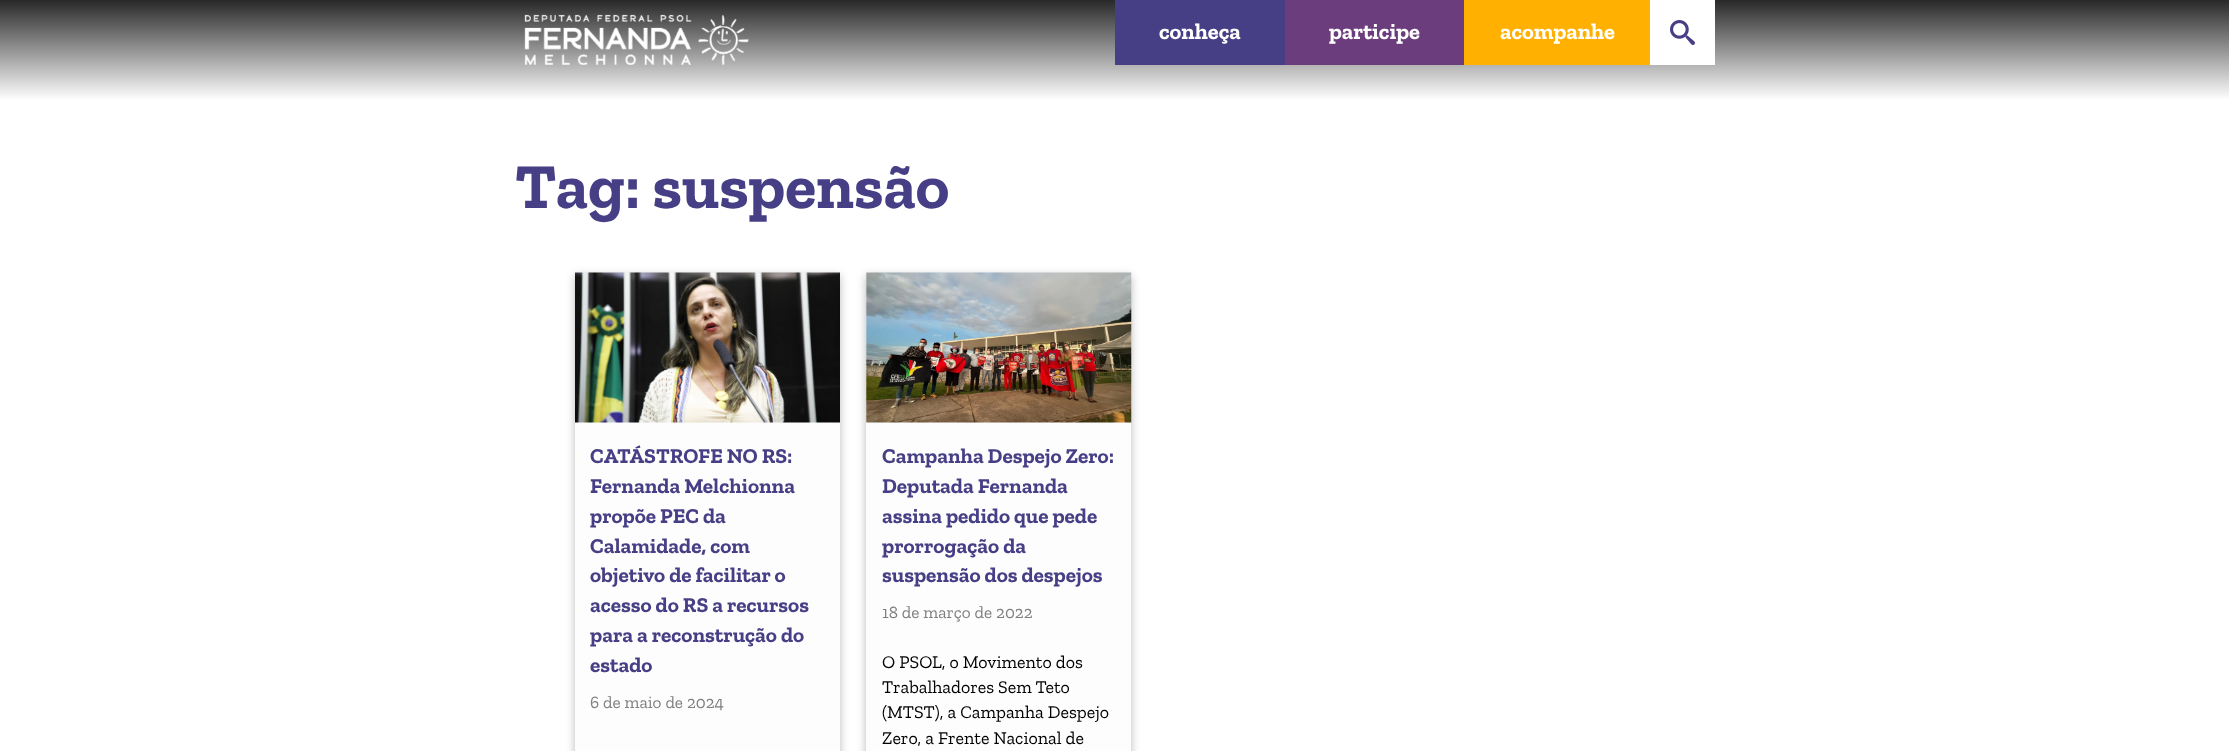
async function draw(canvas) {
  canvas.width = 2229
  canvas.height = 751
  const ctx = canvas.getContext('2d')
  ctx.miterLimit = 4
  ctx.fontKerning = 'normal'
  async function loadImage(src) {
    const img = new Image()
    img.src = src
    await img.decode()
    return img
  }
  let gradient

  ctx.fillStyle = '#fff'
  ctx.fillRect(0, 0, 2229, 751)
  gradient = ctx.createLinearGradient(1115, 0, 1115, 100)
  gradient.addColorStop(0, '#282828')
  gradient.addColorStop(1, '#fff')
  ctx.fillStyle = gradient
  ctx.fillRect(0, 0, 2229, 99)
  ctx.drawImage(await loadImage('image0.png'), 524, 14, 225, 51)
  ctx.fillStyle = '#463f85'
  ctx.fillRect(1115, 0, 170, 65)
  ctx.font = 'bold 22.5px Zilla Slab'
  ctx.fillStyle = '#fff'
  ctx.fillText('conheça', 1159, 39)
  ctx.fillStyle = '#6b3d7c'
  ctx.fillRect(1285, 0, 179, 65)
  ctx.fillStyle = '#fff'
  ctx.fillText('participe', 1329, 39)
  ctx.fillStyle = '#ffb000'
  ctx.fillRect(1464, 0, 186, 65)
  ctx.fillStyle = '#fff'
  ctx.fillText('acompanhe', 1500, 39)
  ctx.fillRect(1650, 0, 65, 65)
  ctx.drawImage(await loadImage('image1.png'), 1670, 20, 25, 25)
  ctx.font = 'bold 64px Zilla Slab'
  ctx.fillStyle = '#463f85'
  ctx.fillText('Tag: suspensão', 515, 208)
  ctx.fillStyle = '#00000045'
  ctx.filter = 'blur(5px)'
  ctx.beginPath()
  ctx.rect(575, 276, 265, 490)
  ctx.fill()
  ctx.filter = 'none'
  ctx.fillStyle = '#fdfdfd'
  ctx.fillRect(575, 422, 265, 329)
  ctx.drawImage(await loadImage('image2.png'), 575, 272, 265, 151)
  ctx.font = 'bold 21.25px Zilla Slab'
  ctx.fillStyle = '#463f85'
  ctx.fillText('CATÁSTROFE NO RS:', 590, 463)
  ctx.fillText('Fernanda Melchionna', 590, 493)
  ctx.fillText('propõe PEC da', 590, 523)
  ctx.fillText('Calamidade, com', 590, 553)
  ctx.fillText('objetivo de facilitar o', 590, 582)
  ctx.fillText('acesso do RS a recursos', 590, 612)
  ctx.fillText('para a reconstrução do', 590, 642)
  ctx.fillText('estado', 590, 672)
  ctx.font = '17.25px Zilla Slab'
  ctx.fillStyle = '#7f7f7f'
  ctx.fillText('6 de maio de 2024', 590, 708)
  ctx.fillStyle = '#00000045'
  ctx.filter = 'blur(5px)'
  ctx.beginPath()
  ctx.rect(866, 276, 265, 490)
  ctx.fill()
  ctx.filter = 'none'
  ctx.fillStyle = '#fdfdfd'
  ctx.fillRect(866, 273, 265, 478)
  ctx.drawImage(await loadImage('image3.png'), 866, 272, 266, 151)
  ctx.font = 'bold 21.25px Zilla Slab'
  ctx.fillStyle = '#463f85'
  ctx.fillText('Campanha Despejo Zero:', 882, 463)
  ctx.fillText('Deputada Fernanda', 882, 493)
  ctx.fillText('assina pedido que pede', 882, 523)
  ctx.fillText('prorrogação da', 882, 553)
  ctx.fillText('suspensão dos despejos', 882, 582)
  ctx.font = '17.25px Zilla Slab'
  ctx.fillStyle = '#7f7f7f'
  ctx.fillText('18 de março de 2022', 882, 618)
  ctx.font = '18px Zilla Slab'
  ctx.fillStyle = '#000'
  ctx.fillText('O PSOL, o Movimento dos', 882, 668)
  ctx.fillText('Trabalhadores Sem Teto', 882, 693)
  ctx.fillText('(MTST), a Campanha Despejo', 882, 718)
  ctx.fillText('Zero, a Frente Nacional de', 882, 744)
}

draw(document.querySelector('canvas'))
